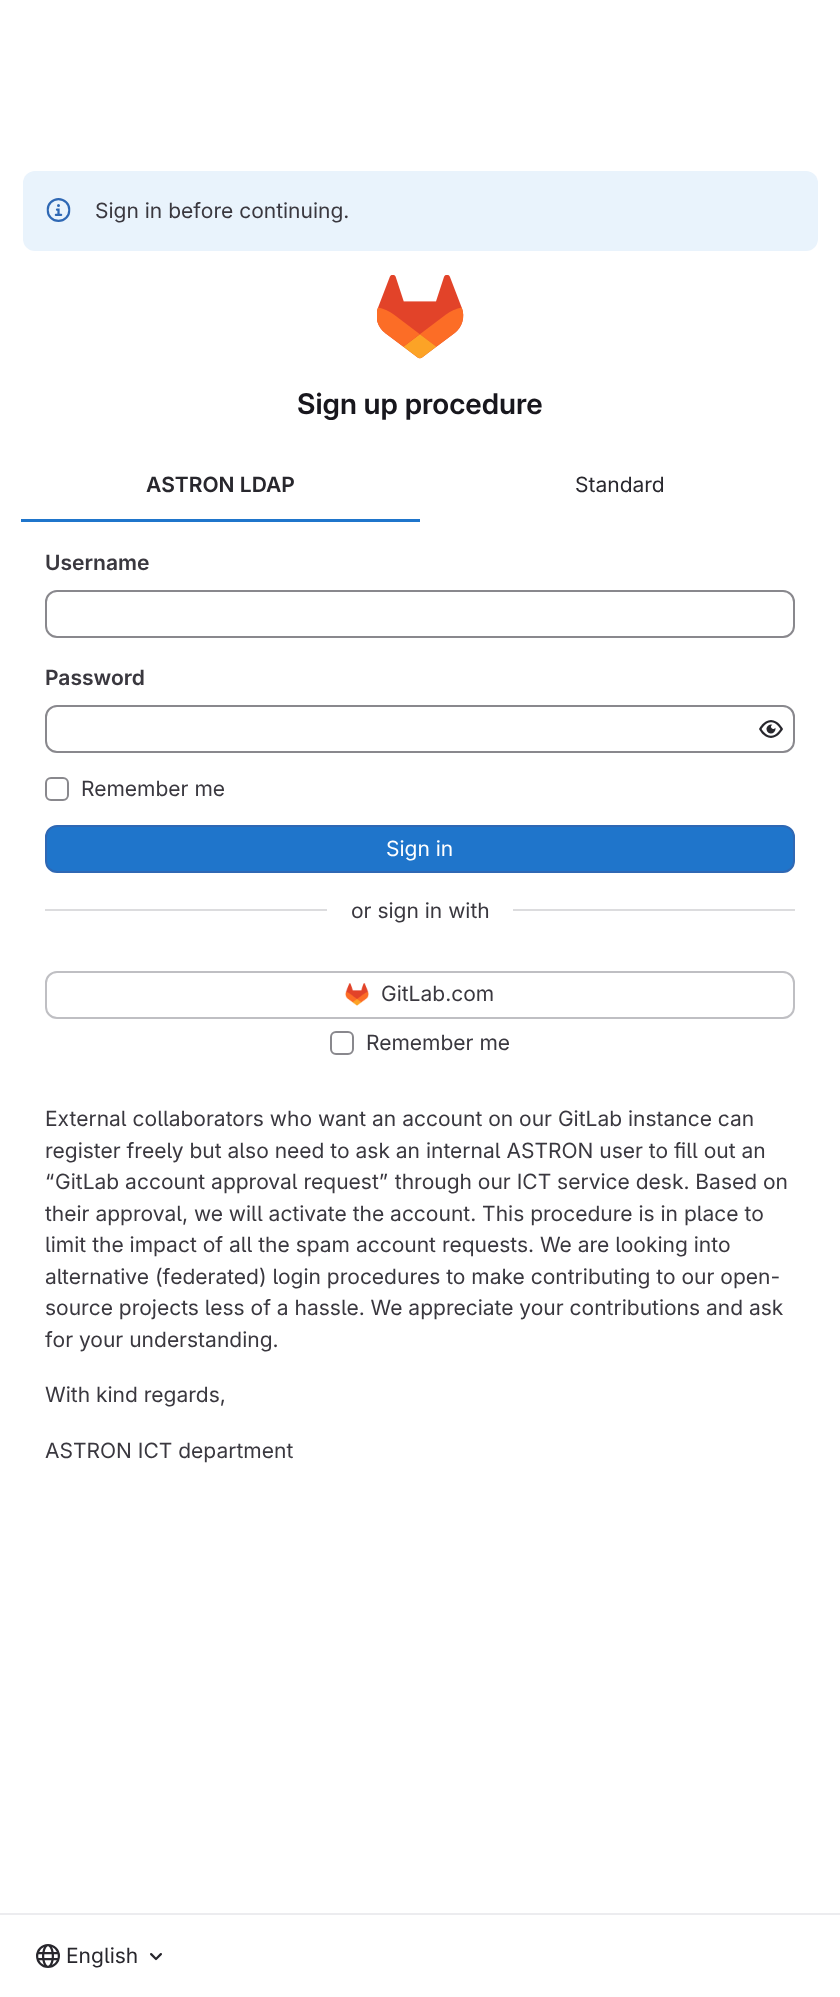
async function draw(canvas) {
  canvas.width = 840
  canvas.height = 1997
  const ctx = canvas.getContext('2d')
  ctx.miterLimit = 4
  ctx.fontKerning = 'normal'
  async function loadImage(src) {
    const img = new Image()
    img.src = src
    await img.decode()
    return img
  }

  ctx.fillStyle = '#fff'
  ctx.fillRect(0, 0, 840, 1997)
  ctx.fillStyle = '#e9f3fc'
  ctx.beginPath()
  ctx.roundRect(23, 171, 795, 80, 12)
  ctx.fill()
  ctx.drawImage(await loadImage('image0.png'), 46, 198, 25, 24)
  ctx.font = '21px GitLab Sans'
  ctx.fillStyle = '#3a383f'
  ctx.fillText('Sign in before continuing.', 95, 218)
  ctx.drawImage(await loadImage('image1.png'), 377, 275, 87, 84)
  ctx.font = '600 28.5px GitLab Sans'
  ctx.fillStyle = '#18171d'
  ctx.fillText('Sign up procedure', 297, 414)
  ctx.font = '600 21px "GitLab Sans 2"'
  ctx.fillStyle = '#28272d'
  ctx.fillText('ASTRON LDAP', 146, 492)
  ctx.fillStyle = '#1f75cb'
  ctx.fillRect(21, 519, 399, 3)
  ctx.font = '21px GitLab Sans'
  ctx.fillStyle = '#28272d'
  ctx.fillText('Standard', 575, 492)
  ctx.font = '600 21px "GitLab Sans 2"'
  ctx.fillStyle = '#3a383f'
  ctx.fillText('Username', 45, 570)
  ctx.beginPath()
  ctx.roundRect(46, 591, 748, 46, 11)
  ctx.strokeStyle = '#89888d'
  ctx.lineWidth = 2
  ctx.stroke()
  ctx.fillText('Password', 45, 685)
  ctx.beginPath()
  ctx.roundRect(46, 706, 748, 46, 11)
  ctx.stroke()
  ctx.drawImage(await loadImage('image2.png'), 759, 720, 24, 18)
  ctx.beginPath()
  ctx.roundRect(46, 778, 22, 22, 5)
  ctx.stroke()
  ctx.font = '21px GitLab Sans'
  ctx.fillText('Remember me', 81, 796)
  ctx.fillStyle = '#1f75cb'
  ctx.beginPath()
  ctx.roundRect(46, 826, 748, 46, 11)
  ctx.fill()
  ctx.strokeStyle = '#2f68b4'
  ctx.stroke()
  ctx.fillStyle = '#fff'
  ctx.fillText('Sign in', 386, 856)
  ctx.fillStyle = '#dcdcde'
  ctx.fillRect(45, 909, 282, 2)
  ctx.fillStyle = '#3a383f'
  ctx.fillText('or sign in with', 351, 918)
  ctx.fillStyle = '#dcdcde'
  ctx.fillRect(513, 909, 282, 2)
  ctx.beginPath()
  ctx.roundRect(46, 972, 748, 46, 11)
  ctx.strokeStyle = '#bfbfc3'
  ctx.stroke()
  ctx.drawImage(await loadImage('image3.png'), 345, 983, 24, 23)
  ctx.fillStyle = '#3a383f'
  ctx.fillText('GitLab.com', 381, 1001)
  ctx.beginPath()
  ctx.roundRect(331, 1032, 22, 22, 5)
  ctx.strokeStyle = '#89888d'
  ctx.stroke()
  ctx.fillText('Remember me', 366, 1050)
  ctx.fillText('External collaborators who want an account on our GitLab instance can', 45, 1126)
  ctx.fillText('register freely but also need to ask an internal ASTRON user to fill out an', 45, 1158)
  ctx.fillText('“GitLab account approval request” through our ICT service desk. Based on', 45, 1189)
  ctx.fillText('their approval, we will activate the account. This procedure is in place to', 45, 1221)
  ctx.fillText('limit the impact of all the spam account requests. We are looking into', 45, 1252)
  ctx.fillText('alternative (federated) login procedures to make contributing to our open-', 45, 1284)
  ctx.fillText('source projects less of a hassle. We appreciate your contributions and ask', 45, 1315)
  ctx.fillText('for your understanding.', 45, 1347)
  ctx.fillText('With kind regards,', 45, 1402)
  ctx.fillText('ASTRON ICT department', 45, 1458)
  ctx.fillStyle = '#ececef'
  ctx.fillRect(0, 1913, 840, 2)
  ctx.drawImage(await loadImage('image4.png'), 36, 1944, 24, 24)
  ctx.fillStyle = '#28272d'
  ctx.fillText('English', 66, 1963)
  ctx.drawImage(await loadImage('image5.png'), 150, 1953, 12, 8)
}

draw(document.querySelector('canvas'))
